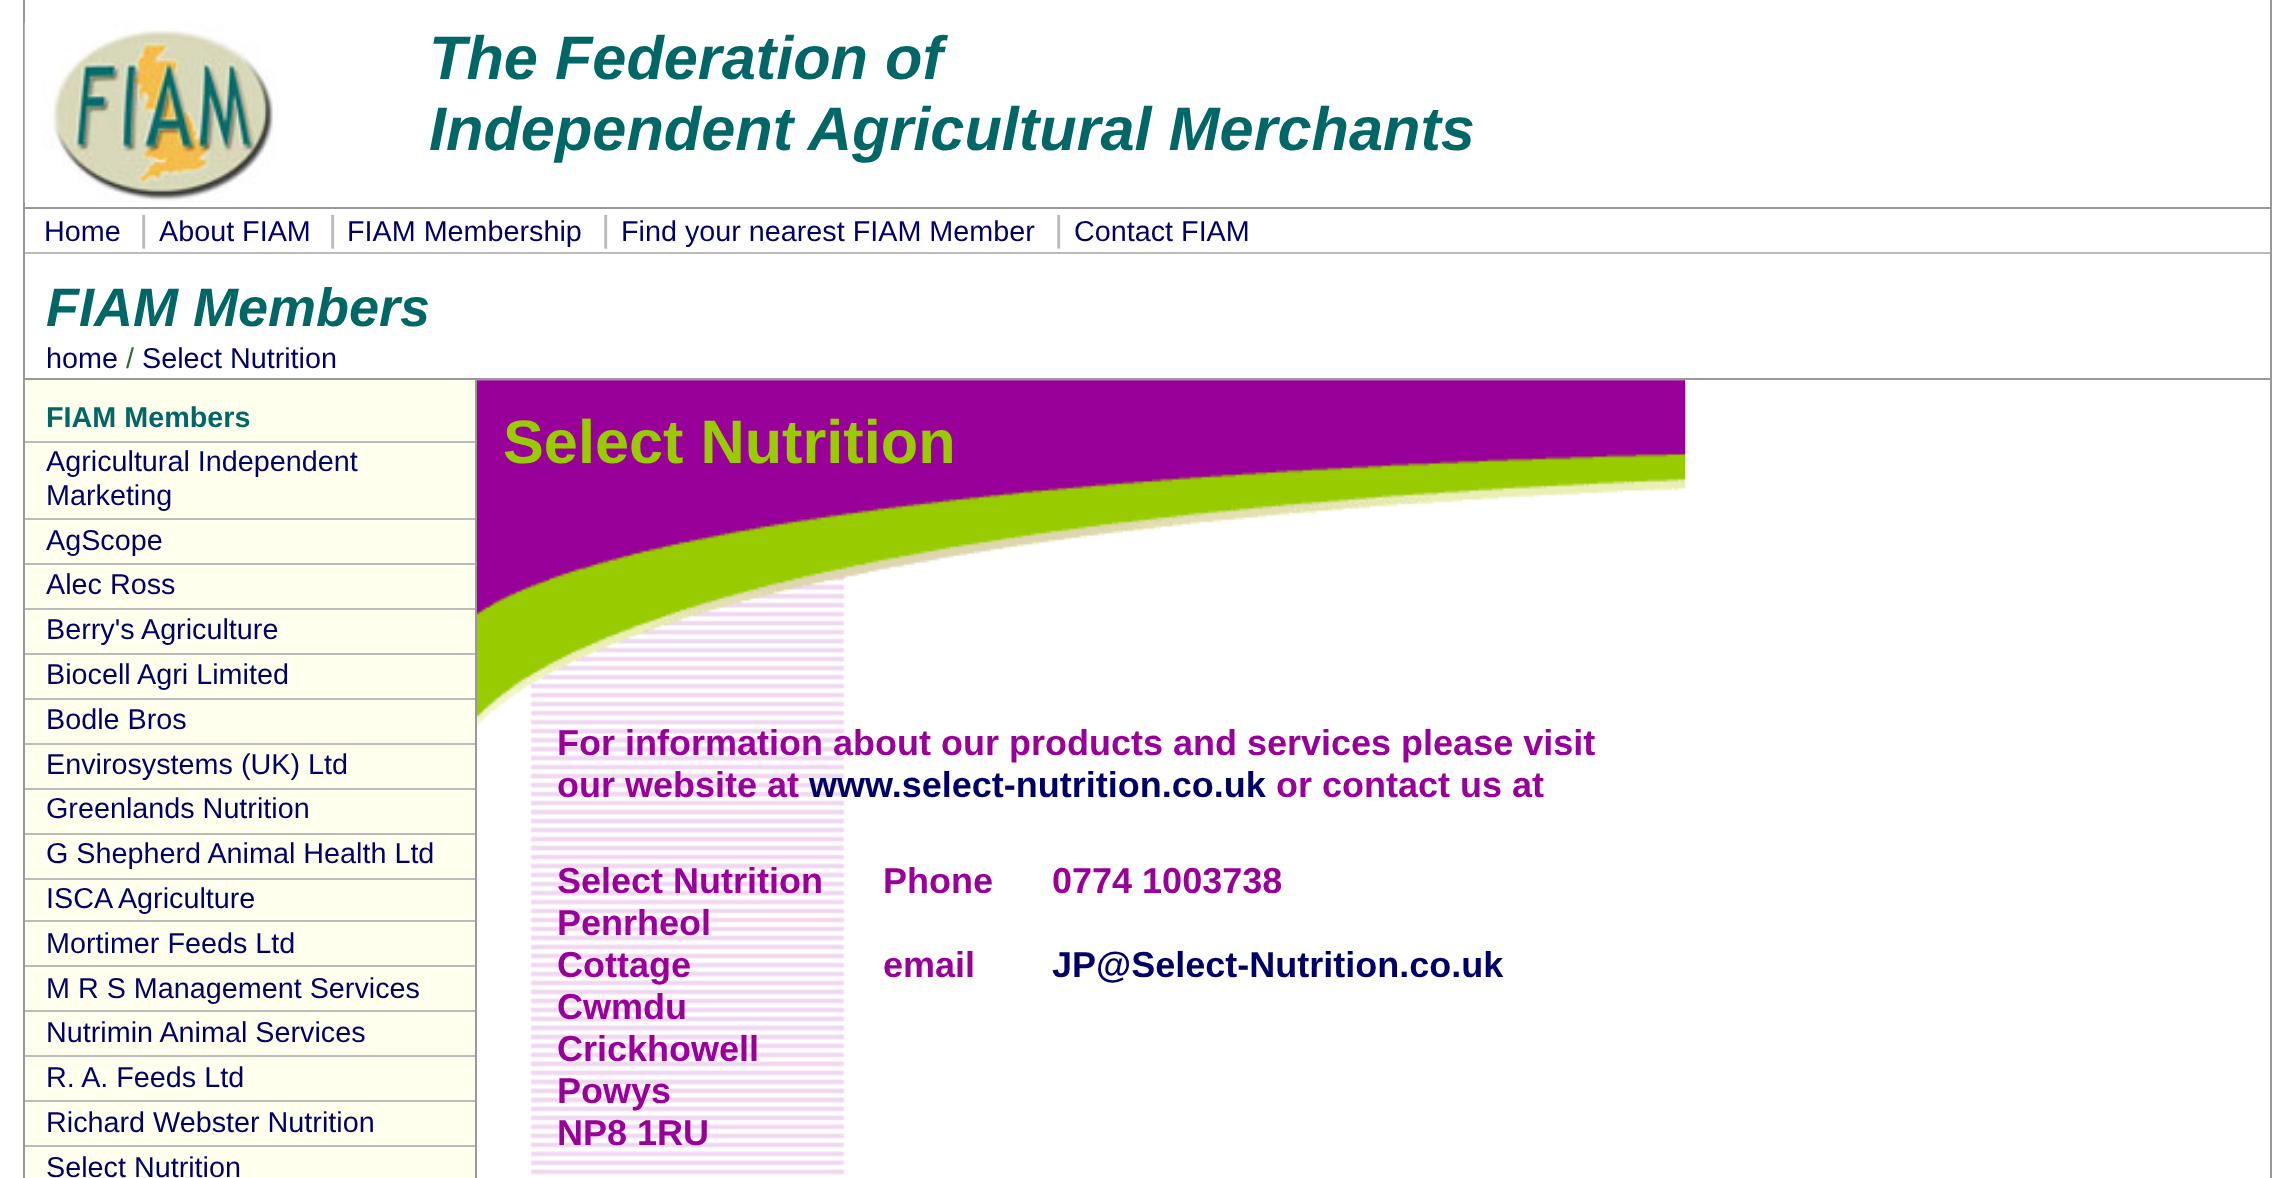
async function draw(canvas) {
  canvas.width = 2292
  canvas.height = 1178
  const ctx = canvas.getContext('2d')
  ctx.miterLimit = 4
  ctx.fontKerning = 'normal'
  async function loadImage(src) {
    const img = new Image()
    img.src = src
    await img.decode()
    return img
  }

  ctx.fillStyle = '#fff'
  ctx.fillRect(0, 0, 2292, 1178)
  ctx.fillStyle = '#999'
  ctx.fillRect(2270, 0, 2, 1178)
  ctx.fillRect(23, 0, 2, 1178)
  ctx.fillRect(25, 207, 2245, 2)
  ctx.drawImage(await loadImage('image0.png'), 24, 22, 253, 181)
  ctx.font = 'italic bold 61.25px Liberation Sans'
  ctx.fillStyle = '#066'
  ctx.fillText('The Federation of', 429, 79)
  ctx.fillText('Independent Agricultural Merchants', 429, 150)
  ctx.fillStyle = '#bbb'
  ctx.fillRect(25, 252, 2245, 2)
  ctx.font = '28.75px Liberation Sans'
  ctx.fillStyle = '#006'
  ctx.fillText('Home', 44, 241)
  ctx.font = '36px Liberation Sans'
  ctx.fillStyle = '#bbb'
  ctx.fillText('|', 139, 241)
  ctx.font = '28.75px Liberation Sans'
  ctx.fillStyle = '#006'
  ctx.fillText('About FIAM', 159, 241)
  ctx.font = '36px Liberation Sans'
  ctx.fillStyle = '#bbb'
  ctx.fillText('|', 328, 241)
  ctx.font = '28.75px Liberation Sans'
  ctx.fillStyle = '#006'
  ctx.fillText('FIAM Membership', 347, 241)
  ctx.font = '36px Liberation Sans'
  ctx.fillStyle = '#bbb'
  ctx.fillText('|', 601, 241)
  ctx.font = '28.75px Liberation Sans'
  ctx.fillStyle = '#006'
  ctx.fillText('Find your nearest FIAM Member', 621, 241)
  ctx.font = '36px Liberation Sans'
  ctx.fillStyle = '#bbb'
  ctx.fillText('|', 1054, 241)
  ctx.font = '28.75px Liberation Sans'
  ctx.fillStyle = '#006'
  ctx.fillText('Contact FIAM', 1074, 241)
  ctx.fillStyle = '#999'
  ctx.fillRect(25, 378, 2245, 2)
  ctx.font = 'italic bold 54px Liberation Sans'
  ctx.fillStyle = '#066'
  ctx.fillText('FIAM Members', 46, 326)
  ctx.font = '28.75px Liberation Sans'
  ctx.fillStyle = '#006'
  ctx.fillText('home', 46, 368)
  ctx.fillStyle = '#363'
  ctx.fillText('/', 126, 368)
  ctx.fillStyle = '#006'
  ctx.fillText('Select Nutrition', 142, 368)
  ctx.fillStyle = '#ffe'
  ctx.fillRect(25, 380, 450, 798)
  ctx.fillStyle = '#999'
  ctx.fillRect(475, 380, 2, 798)
  ctx.font = 'bold 28.75px Liberation Sans'
  ctx.fillStyle = '#066'
  ctx.fillText('FIAM Members', 46, 427)
  ctx.fillStyle = '#bbb'
  ctx.fillRect(25, 441, 450, 2)
  ctx.font = '28.75px Liberation Sans'
  ctx.fillStyle = '#006'
  ctx.fillText('Agricultural Independent', 46, 471)
  ctx.fillText('Marketing', 46, 505)
  ctx.fillStyle = '#bbb'
  ctx.fillRect(25, 518, 450, 2)
  ctx.fillStyle = '#006'
  ctx.fillText('AgScope', 46, 550)
  ctx.fillStyle = '#bbb'
  ctx.fillRect(25, 563, 450, 2)
  ctx.fillStyle = '#006'
  ctx.fillText('Alec Ross', 46, 594)
  ctx.fillStyle = '#bbb'
  ctx.fillRect(25, 608, 450, 2)
  ctx.fillStyle = '#006'
  ctx.fillText('Berry\'s Agriculture', 46, 639)
  ctx.fillStyle = '#bbb'
  ctx.fillRect(25, 653, 450, 2)
  ctx.fillStyle = '#006'
  ctx.fillText('Biocell Agri Limited', 46, 684)
  ctx.fillStyle = '#bbb'
  ctx.fillRect(25, 698, 450, 2)
  ctx.fillStyle = '#006'
  ctx.fillText('Bodle Bros', 46, 729)
  ctx.fillStyle = '#bbb'
  ctx.fillRect(25, 743, 450, 2)
  ctx.fillStyle = '#006'
  ctx.fillText('Envirosystems (UK) Ltd', 46, 774)
  ctx.fillStyle = '#bbb'
  ctx.fillRect(25, 788, 450, 2)
  ctx.fillStyle = '#006'
  ctx.fillText('Greenlands Nutrition', 46, 818)
  ctx.fillStyle = '#bbb'
  ctx.fillRect(25, 833, 450, 2)
  ctx.fillStyle = '#006'
  ctx.fillText('G Shepherd Animal Health Ltd', 46, 863)
  ctx.fillStyle = '#bbb'
  ctx.fillRect(25, 878, 450, 2)
  ctx.fillStyle = '#006'
  ctx.fillText('ISCA Agriculture', 46, 908)
  ctx.fillStyle = '#bbb'
  ctx.fillRect(25, 920, 450, 2)
  ctx.fillStyle = '#006'
  ctx.fillText('Mortimer Feeds Ltd', 46, 953)
  ctx.fillStyle = '#bbb'
  ctx.fillRect(25, 965, 450, 2)
  ctx.fillStyle = '#006'
  ctx.fillText('M R S Management Services', 46, 998)
  ctx.fillStyle = '#bbb'
  ctx.fillRect(25, 1010, 450, 2)
  ctx.fillStyle = '#006'
  ctx.fillText('Nutrimin Animal Services', 46, 1042)
  ctx.fillStyle = '#bbb'
  ctx.fillRect(25, 1055, 450, 2)
  ctx.fillStyle = '#006'
  ctx.fillText('R. A. Feeds Ltd', 46, 1087)
  ctx.fillStyle = '#bbb'
  ctx.fillRect(25, 1100, 450, 2)
  ctx.fillStyle = '#006'
  ctx.fillText('Richard Webster Nutrition', 46, 1132)
  ctx.fillStyle = '#bbb'
  ctx.fillRect(25, 1145, 450, 2)
  ctx.fillStyle = '#006'
  ctx.fillText('Select Nutrition', 46, 1177)
  ctx.drawImage(await loadImage('image1.png'), 477, 380, 1209, 795)
  ctx.font = 'bold 61.25px Liberation Sans'
  ctx.fillStyle = '#9c0'
  ctx.fillText('Select Nutrition', 503, 463)
  ctx.font = 'bold 36px Liberation Sans'
  ctx.fillStyle = '#909'
  ctx.fillText('For information about our products and services please visit', 557, 755)
  ctx.fillText('our website at', 557, 797)
  ctx.fillStyle = '#006'
  ctx.fillText('www.select-nutrition.co.uk', 809, 797)
  ctx.fillStyle = '#909'
  ctx.fillText('or contact us at', 1276, 797)
  ctx.fillText('Select Nutrition', 557, 893)
  ctx.fillText('Penrheol', 557, 935)
  ctx.fillText('Cottage', 557, 977)
  ctx.fillText('Cwmdu', 557, 1019)
  ctx.fillText('Crickhowell', 557, 1061)
  ctx.fillText('Powys', 557, 1103)
  ctx.fillText('NP8 1RU', 557, 1145)
  ctx.fillText('Phone', 883, 893)
  ctx.fillText('email', 883, 977)
  ctx.fillText('0774 1003738', 1052, 893)
  ctx.fillStyle = '#006'
  ctx.fillText('JP@Select-Nutrition.co.uk', 1052, 977)
}

draw(document.querySelector('canvas'))
